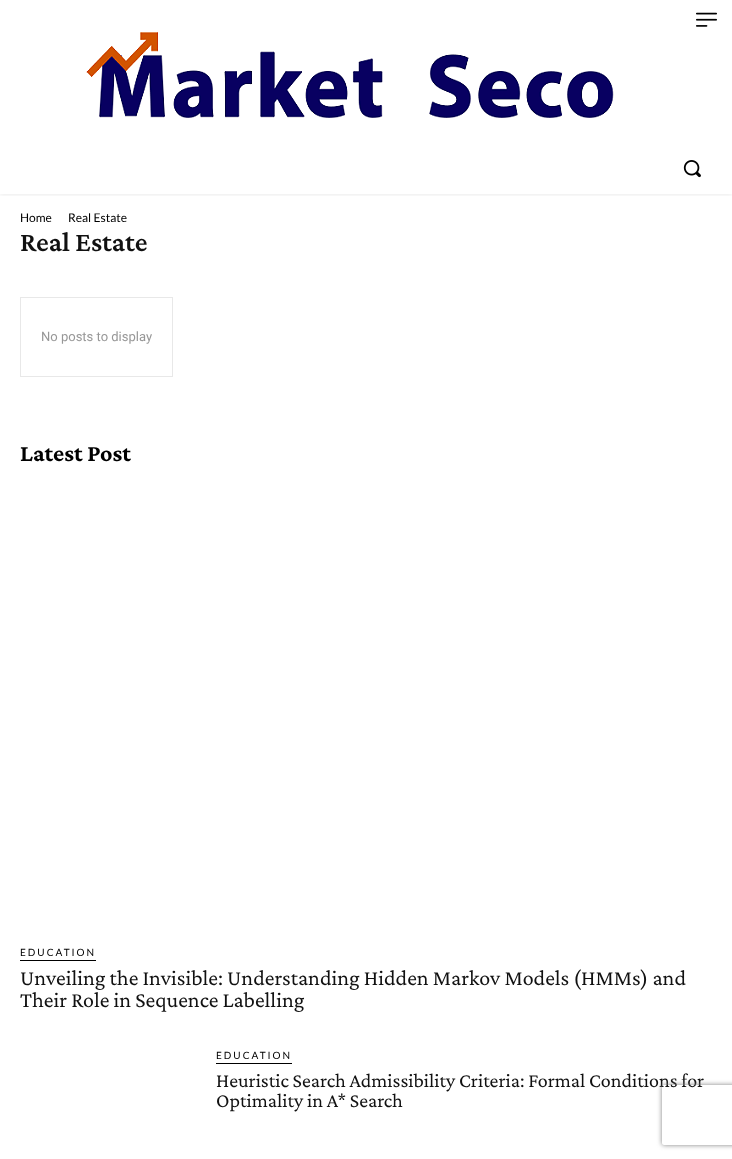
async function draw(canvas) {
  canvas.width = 732
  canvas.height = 1159
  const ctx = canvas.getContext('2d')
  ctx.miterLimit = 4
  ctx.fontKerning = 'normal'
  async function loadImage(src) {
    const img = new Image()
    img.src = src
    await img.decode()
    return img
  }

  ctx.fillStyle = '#fff'
  ctx.fillRect(0, 0, 732, 1159)
  ctx.drawImage(await loadImage('image0.png'), 696, 12, 21, 15)
  ctx.drawImage(await loadImage('image1.png'), 86, 32, 528, 86)
  ctx.drawImage(await loadImage('image2.png'), 683, 160, 18, 18)
  ctx.save()
  ctx.beginPath()
  ctx.rect(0, 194, 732, 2)
  ctx.clip()
  ctx.fillStyle = '#00000014'
  ctx.filter = 'blur(2px)'
  ctx.beginPath()
  ctx.rect(0, 1, 732, 194)
  ctx.fill()
  ctx.filter = 'none'
  ctx.restore()
  ctx.font = '12px Lato'
  ctx.fillStyle = '#000'
  ctx.fillText('Home', 20, 222)
  ctx.fillText('Real Estate', 68, 222)
  ctx.font = '600 28px Crimson Pro'
  ctx.fillStyle = '#111'
  ctx.fillText('Real Estate', 20, 251)
  ctx.strokeStyle = '#e8e8e8'
  ctx.strokeRect(20.5, 297.5, 152, 79)
  ctx.font = '13px Roboto'
  ctx.fillStyle = '#979797'
  ctx.fillText('No posts to display', 41, 341)
  ctx.font = 'bold 24px Crimson Pro'
  ctx.fillStyle = '#000'
  ctx.fillText('Latest Post', 20, 461)
  ctx.fillRect(20, 960, 76, 1)
  ctx.letterSpacing = '2px'
  ctx.font = '10px Lato'
  ctx.fillText('EDUCATION', 20, 956)
  ctx.letterSpacing = '0px'
  ctx.font = '22px Crimson Pro'
  ctx.fillStyle = '#111'
  ctx.fillText('Unveiling the Invisible: Understanding Hidden Markov Models (HMMs) and', 20, 985)
  ctx.fillText('Their Role in Sequence Labelling', 20, 1007)
  ctx.fillStyle = '#000'
  ctx.fillRect(216, 1063, 76, 1)
  ctx.letterSpacing = '2px'
  ctx.font = '10px Lato'
  ctx.fillText('EDUCATION', 216, 1059)
  ctx.letterSpacing = '0px'
  ctx.font = '20px Crimson Pro'
  ctx.fillStyle = '#111'
  ctx.fillText('Heuristic Search Admissibility Criteria: Formal Conditions for', 216, 1087)
  ctx.fillText('Optimality in A* Search', 216, 1107)
  ctx.save()
  ctx.beginPath()
  ctx.moveTo(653, 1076)
  ctx.lineTo(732, 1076)
  ctx.lineTo(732, 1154)
  ctx.lineTo(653, 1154)
  ctx.closePath()
  ctx.moveTo(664, 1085)
  ctx.lineTo(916, 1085)
  ctx.bezierCurveTo(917, 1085, 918, 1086, 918, 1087)
  ctx.lineTo(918, 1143)
  ctx.bezierCurveTo(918, 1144, 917, 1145, 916, 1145)
  ctx.lineTo(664, 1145)
  ctx.bezierCurveTo(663, 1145, 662, 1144, 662, 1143)
  ctx.lineTo(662, 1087)
  ctx.bezierCurveTo(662, 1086, 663, 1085, 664, 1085)
  ctx.closePath()
  ctx.clip('evenodd')
  ctx.fillStyle = '#808080'
  ctx.filter = 'blur(2.5px)'
  ctx.beginPath()
  ctx.roundRect(662, 1085, 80, 60, 2)
  ctx.fill()
  ctx.filter = 'none'
  ctx.restore()
}

draw(document.querySelector('canvas'))
